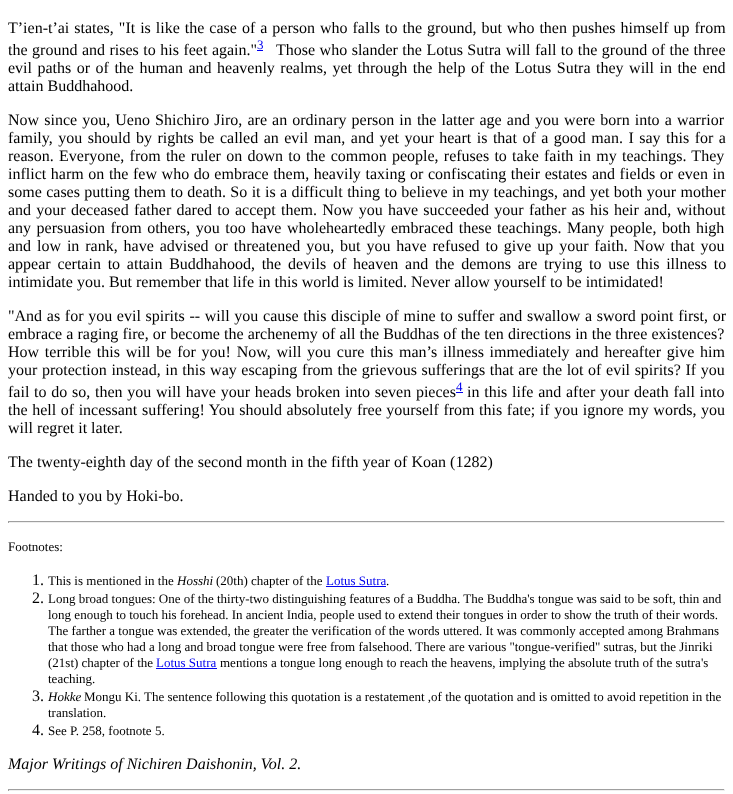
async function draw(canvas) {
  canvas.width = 733
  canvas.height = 794
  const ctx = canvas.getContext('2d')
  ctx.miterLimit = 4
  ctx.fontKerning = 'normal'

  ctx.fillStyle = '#fff'
  ctx.fillRect(0, 0, 733, 794)
  ctx.wordSpacing = '1px'
  ctx.font = '16px Liberation Serif'
  ctx.fillStyle = '#000'
  ctx.fillText('T’ien-t’ai states, "It is like the case of a person who falls to the ground, but who then pushes himself up from', 8, 33)
  ctx.wordSpacing = '0.5px'
  ctx.fillText('the ground and rises to his feet again."', 8, 55)
  ctx.fillStyle = '#00e'
  ctx.fillRect(257, 50, 6, 1)
  ctx.wordSpacing = '0px'
  ctx.font = '13px Liberation Serif'
  ctx.fillText('3', 257, 49)
  ctx.wordSpacing = '0.5px'
  ctx.font = '16px Liberation Serif'
  ctx.fillStyle = '#000'
  ctx.fillText('Those who slander the Lotus Sutra will fall to the ground of the three', 276, 55)
  ctx.wordSpacing = '1.5px'
  ctx.fillText('evil paths or of the human and heavenly realms, yet through the help of the Lotus Sutra they will in the end', 8, 73)
  ctx.wordSpacing = '0px'
  ctx.fillText('attain Buddhahood.', 8, 91)
  ctx.wordSpacing = '1.1px'
  ctx.fillText('Now since you, Ueno Shichiro Jiro, are an ordinary person in the latter age and you were born into a warrior', 8, 125)
  ctx.wordSpacing = '1.5px'
  ctx.fillText('family, you should by rights be called an evil man, and yet your heart is that of a good man. I say this for a', 8, 143)
  ctx.wordSpacing = '1.25px'
  ctx.fillText('reason. Everyone, from the ruler on down to the common people, refuses to take faith in my teachings. They', 8, 161)
  ctx.wordSpacing = '0.6px'
  ctx.fillText('inflict harm on the few who do embrace them, heavily taxing or confiscating their estates and fields or even in', 8, 179)
  ctx.wordSpacing = '0.4px'
  ctx.fillText('some cases putting them to death. So it is a difficult thing to believe in my teachings, and yet both your mother', 8, 197)
  ctx.wordSpacing = '1.25px'
  ctx.fillText('and your deceased father dared to accept them. Now you have succeeded your father as his heir and, without', 8, 215)
  ctx.wordSpacing = '1.5px'
  ctx.fillText('any persuasion from others, you too have wholeheartedly embraced these teachings. Many people, both high', 8, 233)
  ctx.wordSpacing = '1.9px'
  ctx.fillText('and low in rank, have advised or threatened you, but you have refused to give up your faith. Now that you', 8, 251)
  ctx.wordSpacing = '2.75px'
  ctx.fillText('appear certain to attain Buddhahood, the devils of heaven and the demons are trying to use this illness to', 8, 269)
  ctx.wordSpacing = '0px'
  ctx.fillText('intimidate you. But remember that life in this world is limited. Never allow yourself to be intimidated!', 8, 287)
  ctx.wordSpacing = '0.7px'
  ctx.fillText('"And as for you evil spirits -- will you cause this disciple of mine to suffer and swallow a sword point first, or', 8, 321)
  ctx.wordSpacing = '0.1px'
  ctx.fillText('embrace a raging fire, or become the archenemy of all the Buddhas of the ten directions in the three existences?', 8, 339)
  ctx.wordSpacing = '1.75px'
  ctx.fillText('How terrible this will be for you! Now, will you cure this man’s illness immediately and hereafter give him', 8, 357)
  ctx.wordSpacing = '0.6px'
  ctx.fillText('your protection instead, in this way escaping from the grievous sufferings that are the lot of evil spirits? If you', 8, 375)
  ctx.wordSpacing = '0.75px'
  ctx.fillText('fail to do so, then you will have your heads broken into seven pieces', 8, 397)
  ctx.fillStyle = '#00e'
  ctx.fillRect(456, 392, 7, 1)
  ctx.wordSpacing = '0px'
  ctx.font = '13px Liberation Serif'
  ctx.fillText('4', 456, 391)
  ctx.wordSpacing = '0.75px'
  ctx.font = '16px Liberation Serif'
  ctx.fillStyle = '#000'
  ctx.fillText('in this life and after your death fall into', 467, 397)
  ctx.wordSpacing = '0.6px'
  ctx.fillText('the hell of incessant suffering! You should absolutely free yourself from this fate; if you ignore my words, you', 8, 415)
  ctx.wordSpacing = '0px'
  ctx.fillText('will regret it later.', 8, 433)
  ctx.fillText('The twenty-eighth day of the second month in the fifth year of Koan (1282)', 8, 467)
  ctx.fillText('Handed to you by Hoki-bo.', 8, 501)
  ctx.fillStyle = '#9f9f9f'
  ctx.fillRect(8, 521, 717, 1)
  ctx.fillStyle = '#eee'
  ctx.fillRect(724, 521, 1, 2)
  ctx.fillRect(8, 522, 717, 1)
  ctx.fillStyle = '#9f9f9f'
  ctx.fillRect(8, 521, 1, 2)
  ctx.font = '13px Liberation Serif'
  ctx.fillStyle = '#000'
  ctx.fillText('Footnotes:', 8, 551)
  ctx.font = '16px Liberation Serif'
  ctx.fillText('1.', 32, 585)
  ctx.font = '13px Liberation Serif'
  ctx.fillText('This is mentioned in the', 48, 585)
  ctx.font = 'italic 13px Liberation Serif'
  ctx.fillText('Hosshi', 177, 585)
  ctx.font = '13px Liberation Serif'
  ctx.fillText('(20th) chapter of the', 216, 585)
  ctx.fillStyle = '#00e'
  ctx.fillText('Lotus Sutra', 326, 585)
  ctx.fillStyle = '#000'
  ctx.fillText('.', 386, 585)
  ctx.fillStyle = '#00e'
  ctx.fillRect(326, 586, 60, 1)
  ctx.font = '16px Liberation Serif'
  ctx.fillStyle = '#000'
  ctx.fillText('2.', 32, 603)
  ctx.font = '13px Liberation Serif'
  ctx.fillText('Long broad tongues: One of the thirty-two distinguishing features of a Buddha. The Buddha\'s tongue was said to be soft, thin and', 48, 603)
  ctx.fillText('long enough to touch his forehead. In ancient India, people used to extend their tongues in order to show the truth of their words.', 48, 619)
  ctx.fillText('The farther a tongue was extended, the greater the verification of the words uttered. It was commonly accepted among Brahmans', 48, 635)
  ctx.fillText('that those who had a long and broad tongue were free from falsehood. There are various "tongue-verified" sutras, but the Jinriki', 48, 651)
  ctx.fillText('(21st) chapter of the', 48, 667)
  ctx.fillStyle = '#00e'
  ctx.fillText('Lotus Sutra', 156, 667)
  ctx.fillRect(156, 668, 61, 1)
  ctx.fillStyle = '#000'
  ctx.fillText('mentions a tongue long enough to reach the heavens, implying the absolute truth of the sutra\'s', 220, 667)
  ctx.fillText('teaching.', 48, 683)
  ctx.font = '16px Liberation Serif'
  ctx.fillText('3.', 32, 701)
  ctx.font = 'italic 13px Liberation Serif'
  ctx.fillText('Hokke', 48, 701)
  ctx.font = '13px Liberation Serif'
  ctx.fillText('Mongu Ki. The sentence following this quotation is a restatement ,of the quotation and is omitted to avoid repetition in the', 84, 701)
  ctx.fillText('translation.', 48, 717)
  ctx.font = '16px Liberation Serif'
  ctx.fillText('4.', 32, 735)
  ctx.font = '13px Liberation Serif'
  ctx.fillText('See P. 258, footnote 5.', 48, 735)
  ctx.font = 'italic 16px Liberation Serif'
  ctx.fillText('Major Writings of Nichiren Daishonin, Vol. 2.', 8, 769)
  ctx.fillStyle = '#9f9f9f'
  ctx.fillRect(8, 789, 717, 1)
  ctx.fillStyle = '#eee'
  ctx.fillRect(724, 789, 1, 2)
  ctx.fillRect(8, 790, 717, 1)
  ctx.fillStyle = '#9f9f9f'
  ctx.fillRect(8, 789, 1, 2)
}

draw(document.querySelector('canvas'))
